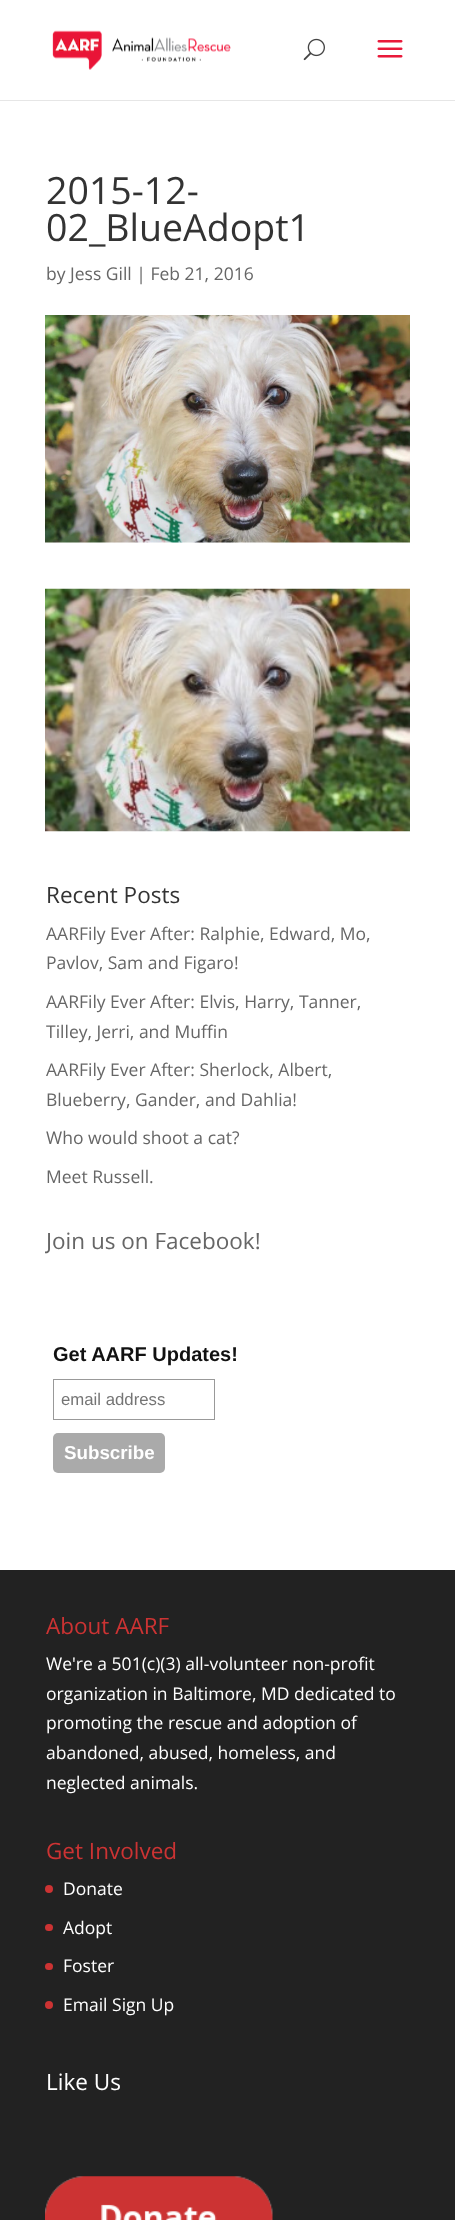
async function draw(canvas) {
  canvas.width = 455
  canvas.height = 2220
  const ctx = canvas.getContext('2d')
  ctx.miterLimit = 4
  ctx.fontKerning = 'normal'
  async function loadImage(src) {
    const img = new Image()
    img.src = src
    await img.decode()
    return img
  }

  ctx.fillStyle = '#fff'
  ctx.fillRect(0, 0, 455, 2220)
  ctx.fillStyle = '#e6e6e6'
  ctx.fillRect(0, 100, 455, 1)
  ctx.drawImage(await loadImage('image0.png'), 52, 30, 179, 40)
  ctx.drawImage(await loadImage('image1.png'), 303, 38, 22, 23)
  ctx.drawImage(await loadImage('image2.png'), 377, 40, 26, 18)
  ctx.font = '37.5px Open Sans'
  ctx.fillStyle = '#333'
  ctx.fillText('2015-12-', 46, 204)
  ctx.fillText('02_BlueAdopt1', 46, 241)
  ctx.font = '17.5px Open Sans'
  ctx.fillStyle = '#666'
  ctx.fillText('by Jess Gill | Feb 21, 2016', 46, 280)
  ctx.drawImage(await loadImage('image3.png'), 45, 315, 365, 228)
  ctx.drawImage(await loadImage('image4.png'), 45, 588, 365, 244)
  ctx.font = '22.5px Open Sans'
  ctx.fillStyle = '#333'
  ctx.fillText('Recent Posts', 46, 903)
  ctx.font = '17.5px Open Sans'
  ctx.fillStyle = '#666'
  ctx.fillText('AARFily Ever After: Ralphie, Edward, Mo,', 46, 940)
  ctx.fillText('Pavlov, Sam and Figaro!', 46, 969)
  ctx.fillText('AARFily Ever After: Elvis, Harry, Tanner,', 46, 1008)
  ctx.fillText('Tilley, Jerri, and Muffin', 46, 1038)
  ctx.fillText('AARFily Ever After: Sherlock, Albert,', 46, 1076)
  ctx.fillText('Blueberry, Gander, and Dahlia!', 46, 1106)
  ctx.fillText('Who would shoot a cat?', 46, 1144)
  ctx.fillText('Meet Russell.', 46, 1183)
  ctx.save()
  ctx.beginPath()
  ctx.rect(45, 1229, 365, 65)
  ctx.clip()
  ctx.font = '22.5px Open Sans'
  ctx.fillText('Join us on Facebook!', 46, 1249)
  ctx.restore()
  ctx.font = 'bold 20px Liberation Sans'
  ctx.fillStyle = '#111'
  ctx.fillText('Get AARF Updates!', 53, 1361)
  ctx.strokeStyle = '#999'
  ctx.strokeRect(53.5, 1379.5, 161, 40)
  ctx.font = '16.75px Liberation Sans'
  ctx.fillStyle = '#757575'
  ctx.fillText('email address', 61, 1405)
  ctx.fillStyle = '#aaa'
  ctx.beginPath()
  ctx.roundRect(53, 1433, 112, 40, 5)
  ctx.fill()
  ctx.font = 'bold 18.75px Liberation Sans'
  ctx.fillStyle = '#fff'
  ctx.fillText('Subscribe', 64, 1459)
  ctx.fillStyle = '#222'
  ctx.fillRect(0, 1570, 455, 650)
  ctx.font = '22.5px Open Sans'
  ctx.fillStyle = '#c33'
  ctx.fillText('About AARF', 46, 1634)
  ctx.font = '17.5px Open Sans'
  ctx.fillStyle = '#fff'
  ctx.fillText('We\'re a 501(c)(3) all-volunteer non-profit', 46, 1670)
  ctx.fillText('organization in Baltimore, MD dedicated to', 46, 1700)
  ctx.fillText('promoting the rescue and adoption of', 46, 1729)
  ctx.fillText('abandoned, abused, homeless, and', 46, 1759)
  ctx.fillText('neglected animals.', 46, 1789)
  ctx.font = '22.5px Open Sans'
  ctx.fillStyle = '#c33'
  ctx.fillText('Get Involved', 46, 1859)
  ctx.beginPath()
  ctx.arc(49, 1889, 4, 0, 2 * Math.PI)
  ctx.fill()
  ctx.font = '17.5px Open Sans'
  ctx.fillStyle = '#fff'
  ctx.fillText('Donate', 63, 1895)
  ctx.fillStyle = '#c33'
  ctx.beginPath()
  ctx.roundRect(45, 1924, 8, 7, 3.5)
  ctx.fill()
  ctx.fillStyle = '#fff'
  ctx.fillText('Adopt', 63, 1934)
  ctx.fillStyle = '#c33'
  ctx.beginPath()
  ctx.roundRect(45, 1963, 8, 7, 3.5)
  ctx.fill()
  ctx.fillStyle = '#fff'
  ctx.fillText('Foster', 63, 1972)
  ctx.fillStyle = '#c33'
  ctx.beginPath()
  ctx.arc(49, 2005, 4, 0, 2 * Math.PI)
  ctx.fill()
  ctx.fillStyle = '#fff'
  ctx.fillText('Email Sign Up', 63, 2011)
  ctx.font = '22.5px Open Sans'
  ctx.fillText('Like Us', 46, 2090)
  ctx.drawImage(await loadImage('image5.png'), 45, 2176, 228, 44)
}

draw(document.querySelector('canvas'))
